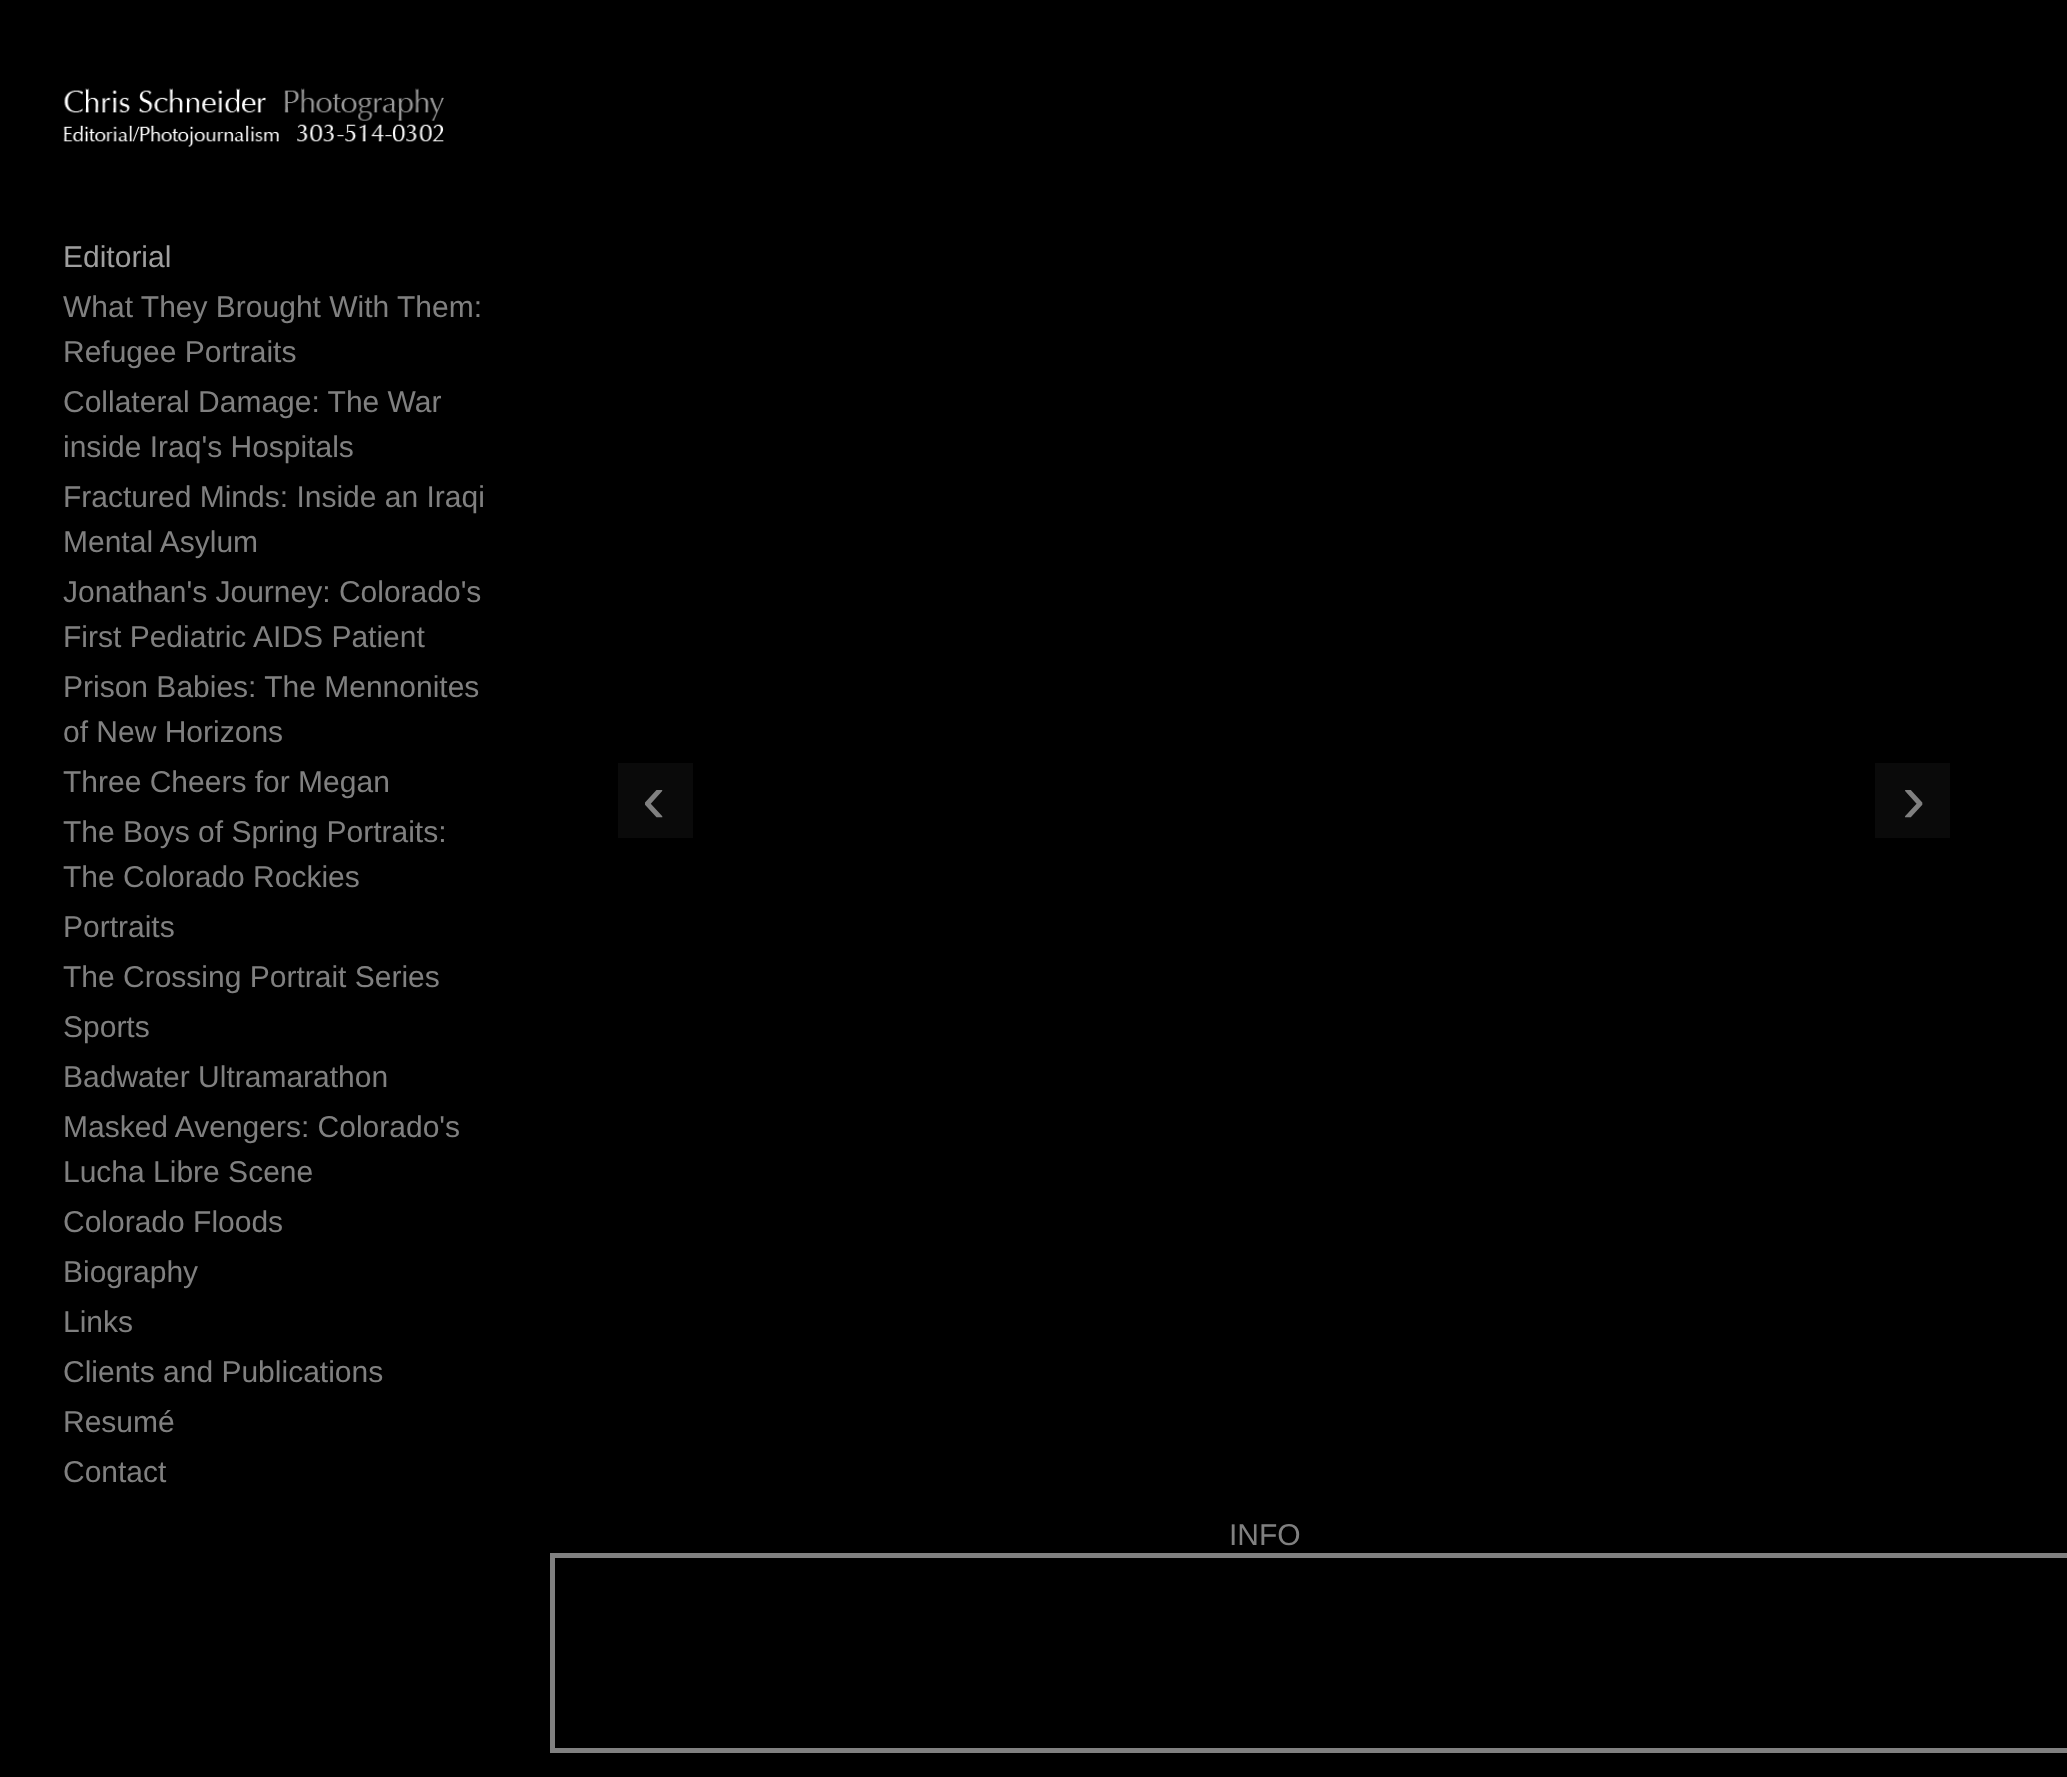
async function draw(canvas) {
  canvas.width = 2067
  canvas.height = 1777
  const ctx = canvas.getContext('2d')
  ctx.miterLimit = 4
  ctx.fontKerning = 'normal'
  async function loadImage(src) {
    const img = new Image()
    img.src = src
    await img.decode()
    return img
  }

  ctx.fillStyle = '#000'
  ctx.fillRect(0, 0, 2067, 1777)
  ctx.drawImage(await loadImage('image0.png'), 63, 88, 381, 59)
  ctx.font = '30px Liberation Sans'
  ctx.fillStyle = '#9e9e9e'
  ctx.fillText('Editorial', 63, 267)
  ctx.fillStyle = '#808080'
  ctx.fillText('What They Brought With Them:', 63, 317)
  ctx.fillText('Refugee Portraits', 63, 362)
  ctx.fillText('Collateral Damage: The War', 63, 412)
  ctx.fillText('inside Iraq\'s Hospitals', 63, 457)
  ctx.fillText('Fractured Minds: Inside an Iraqi', 63, 507)
  ctx.fillText('Mental Asylum', 63, 552)
  ctx.fillText('Jonathan\'s Journey: Colorado\'s', 63, 602)
  ctx.fillText('First Pediatric AIDS Patient', 63, 647)
  ctx.fillText('Prison Babies: The Mennonites', 63, 697)
  ctx.fillText('of New Horizons', 63, 742)
  ctx.fillText('Three Cheers for Megan', 63, 792)
  ctx.fillText('The Boys of Spring Portraits:', 63, 842)
  ctx.fillText('The Colorado Rockies', 63, 887)
  ctx.fillText('Portraits', 63, 937)
  ctx.fillText('The Crossing Portrait Series', 63, 987)
  ctx.fillText('Sports', 63, 1037)
  ctx.fillText('Badwater Ultramarathon', 63, 1087)
  ctx.fillText('Masked Avengers: Colorado\'s', 63, 1137)
  ctx.fillText('Lucha Libre Scene', 63, 1182)
  ctx.fillText('Colorado Floods', 63, 1232)
  ctx.fillText('Biography', 63, 1282)
  ctx.fillText('Links', 63, 1332)
  ctx.fillText('Clients and Publications', 63, 1382)
  ctx.fillText('Resumé', 63, 1432)
  ctx.fillText('Contact', 63, 1482)
  ctx.fillStyle = '#0a0a0a'
  ctx.fillRect(618, 763, 75, 75)
  ctx.font = '70px Liberation Sans'
  ctx.fillStyle = '#808080'
  ctx.fillText('‹', 642, 822)
  ctx.fillStyle = '#0a0a0a'
  ctx.fillRect(1875, 763, 75, 75)
  ctx.fillStyle = '#808080'
  ctx.fillText('›', 1902, 822)
  ctx.font = '30px Liberation Sans'
  ctx.fillText('INFO', 1229, 1545)
  ctx.strokeStyle = '#808080'
  ctx.lineWidth = 5
  ctx.strokeRect(552.5, 1555.5, 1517, 195)
}

draw(document.querySelector('canvas'))
